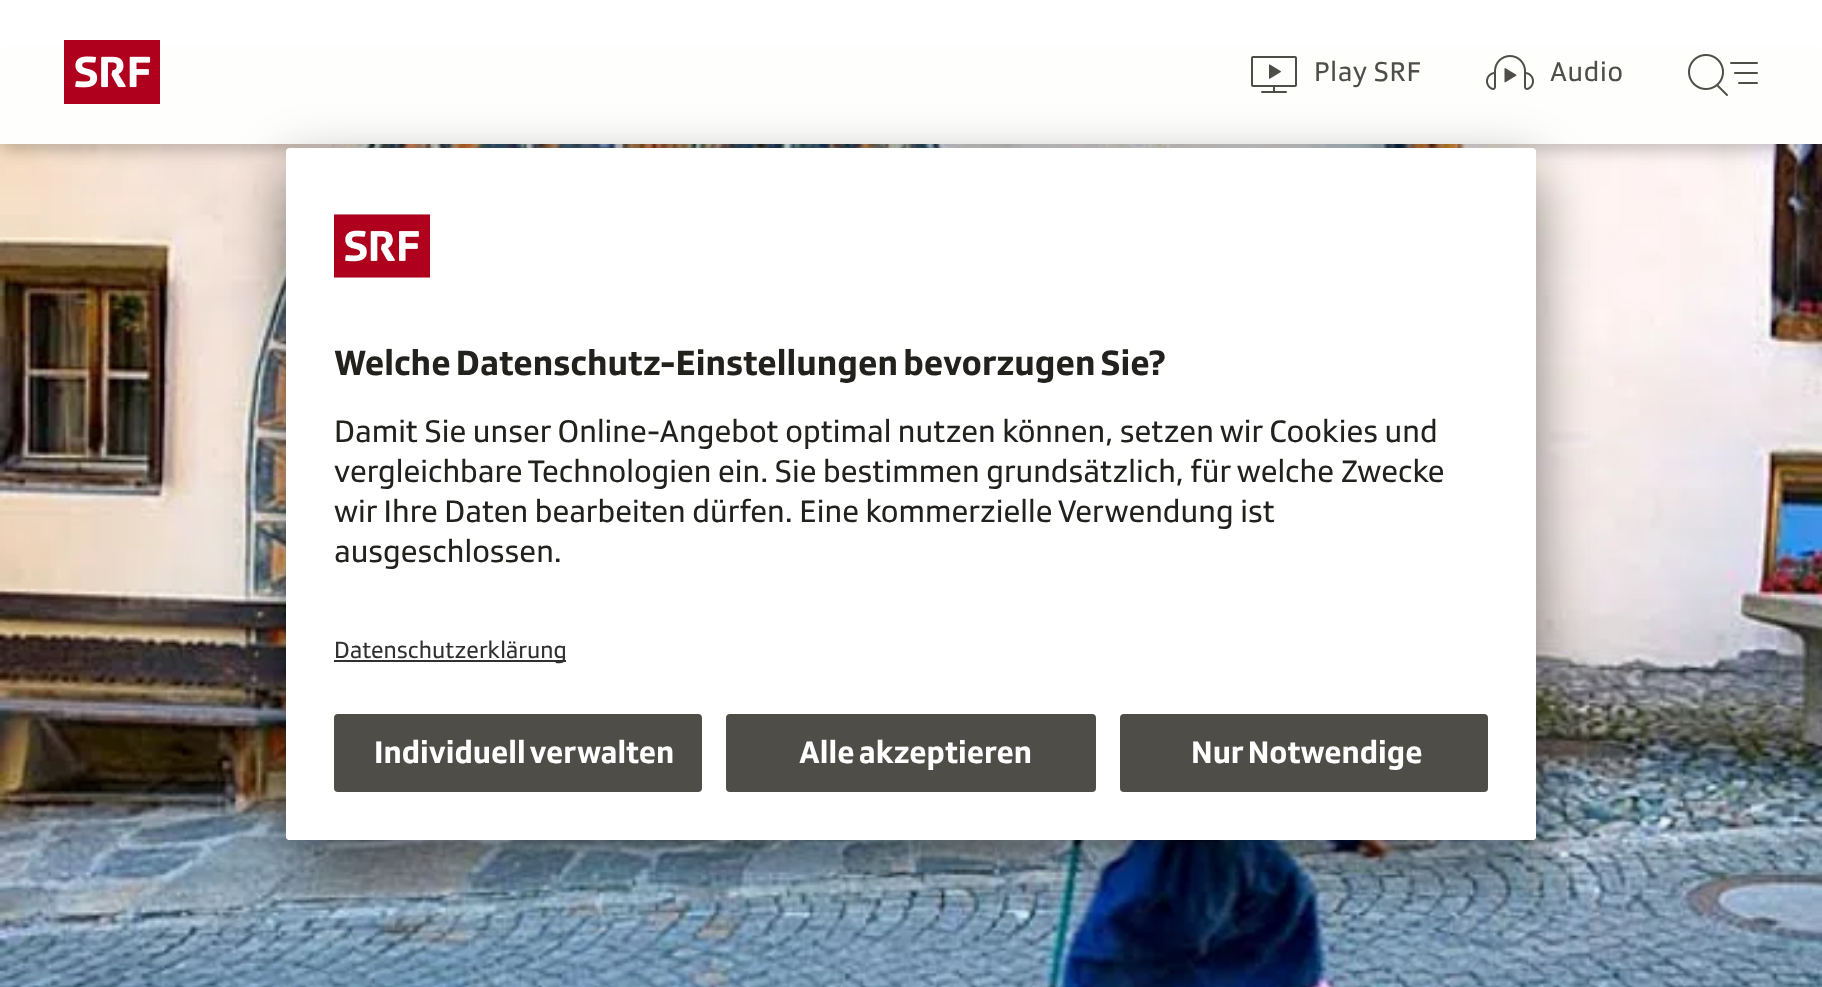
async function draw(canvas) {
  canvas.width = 1822
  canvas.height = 987
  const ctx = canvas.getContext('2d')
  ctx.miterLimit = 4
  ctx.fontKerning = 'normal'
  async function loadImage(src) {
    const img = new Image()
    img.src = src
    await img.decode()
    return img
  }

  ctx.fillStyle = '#fff'
  ctx.fillRect(0, 0, 1822, 987)
  ctx.drawImage(await loadImage('image4.png'), 0, 144, 1822, 843)
  ctx.fillStyle = '#00000014'
  ctx.filter = 'blur(8px)'
  ctx.beginPath()
  ctx.rect(0, 60, 1822, 84)
  ctx.fill()
  ctx.filter = 'none'
  ctx.fillStyle = '#00000029'
  ctx.filter = 'blur(8px)'
  ctx.beginPath()
  ctx.rect(0, 68, 1822, 84)
  ctx.fill()
  ctx.filter = 'none'
  ctx.fillStyle = '#fefefd'
  ctx.fillRect(0, 51, 1822, 93)
  ctx.drawImage(await loadImage('image0.png'), 64, 40, 96, 64)
  ctx.drawImage(await loadImage('image1.png'), 1251, 56, 46, 37)
  ctx.letterSpacing = '0.75px'
  ctx.font = '28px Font'
  ctx.fillStyle = '#4e4d47'
  ctx.fillText('Play SRF', 1314, 81)
  ctx.drawImage(await loadImage('image2.png'), 1486, 55, 48, 35)
  ctx.fillText('Audio', 1550, 81)
  ctx.drawImage(await loadImage('image3.png'), 1688, 54, 70, 42)
  ctx.fillStyle = '#0000004d'
  ctx.filter = 'blur(28px)'
  ctx.beginPath()
  ctx.roundRect(286, 188, 1250, 692, 4)
  ctx.fill()
  ctx.filter = 'none'
  ctx.fillStyle = '#00000038'
  ctx.filter = 'blur(26px)'
  ctx.beginPath()
  ctx.roundRect(286, 158, 1250, 692, 4)
  ctx.fill()
  ctx.filter = 'none'
  ctx.fillStyle = '#fff'
  ctx.beginPath()
  ctx.roundRect(286, 148, 1250, 692, 4)
  ctx.fill()
  ctx.save()
  ctx.beginPath()
  ctx.roundRect(286, 148, 1250, 550, [4, 4, 0, 0])
  ctx.clip()
  ctx.fillRect(286, 150, 1250, 548)
  ctx.restore()
  ctx.drawImage(await loadImage('image5.png'), 334, 214, 96, 64)
  ctx.letterSpacing = '0px'
  ctx.wordSpacing = '-2px'
  ctx.font = 'bold 36px Font'
  ctx.fillStyle = '#22211d'
  ctx.fillText('Welche Datenschutz-Einstellungen bevorzugen Sie?', 334, 375)
  ctx.wordSpacing = '0px'
  ctx.font = '32px Font'
  ctx.fillText('Damit Sie unser Online-Angebot optimal nutzen können, setzen wir Cookies und', 334, 442)
  ctx.fillText('vergleichbare Technologien ein. Sie bestimmen grundsätzlich, für welche Zwecke', 334, 482)
  ctx.fillText('wir Ihre Daten bearbeiten dürfen. Eine kommerzielle Verwendung ist', 334, 522)
  ctx.fillText('ausgeschlossen.', 334, 562)
  ctx.fillStyle = '#303030'
  ctx.fillRect(334, 660, 232, 2)
  ctx.font = '24px Font'
  ctx.fillText('Datenschutzerklärung', 334, 658)
  ctx.fillStyle = '#fff'
  ctx.beginPath()
  ctx.roundRect(286, 698, 1250, 142, [0, 0, 4, 4])
  ctx.fill()
  ctx.fillStyle = '#4e4d47'
  ctx.beginPath()
  ctx.roundRect(334, 714, 368, 78, 4)
  ctx.fill()
  ctx.wordSpacing = '-2px'
  ctx.font = 'bold 32px Font'
  ctx.fillStyle = '#fff'
  ctx.fillText('Individuell verwalten', 374, 763)
  ctx.fillStyle = '#4e4d47'
  ctx.beginPath()
  ctx.roundRect(726, 714, 370, 78, 4)
  ctx.fill()
  ctx.fillStyle = '#fff'
  ctx.fillText('Alle akzeptieren', 799, 763)
  ctx.fillStyle = '#4e4d47'
  ctx.beginPath()
  ctx.roundRect(1120, 714, 368, 78, 4)
  ctx.fill()
  ctx.fillStyle = '#fff'
  ctx.fillText('Nur Notwendige', 1191, 763)
}

draw(document.querySelector('canvas'))
